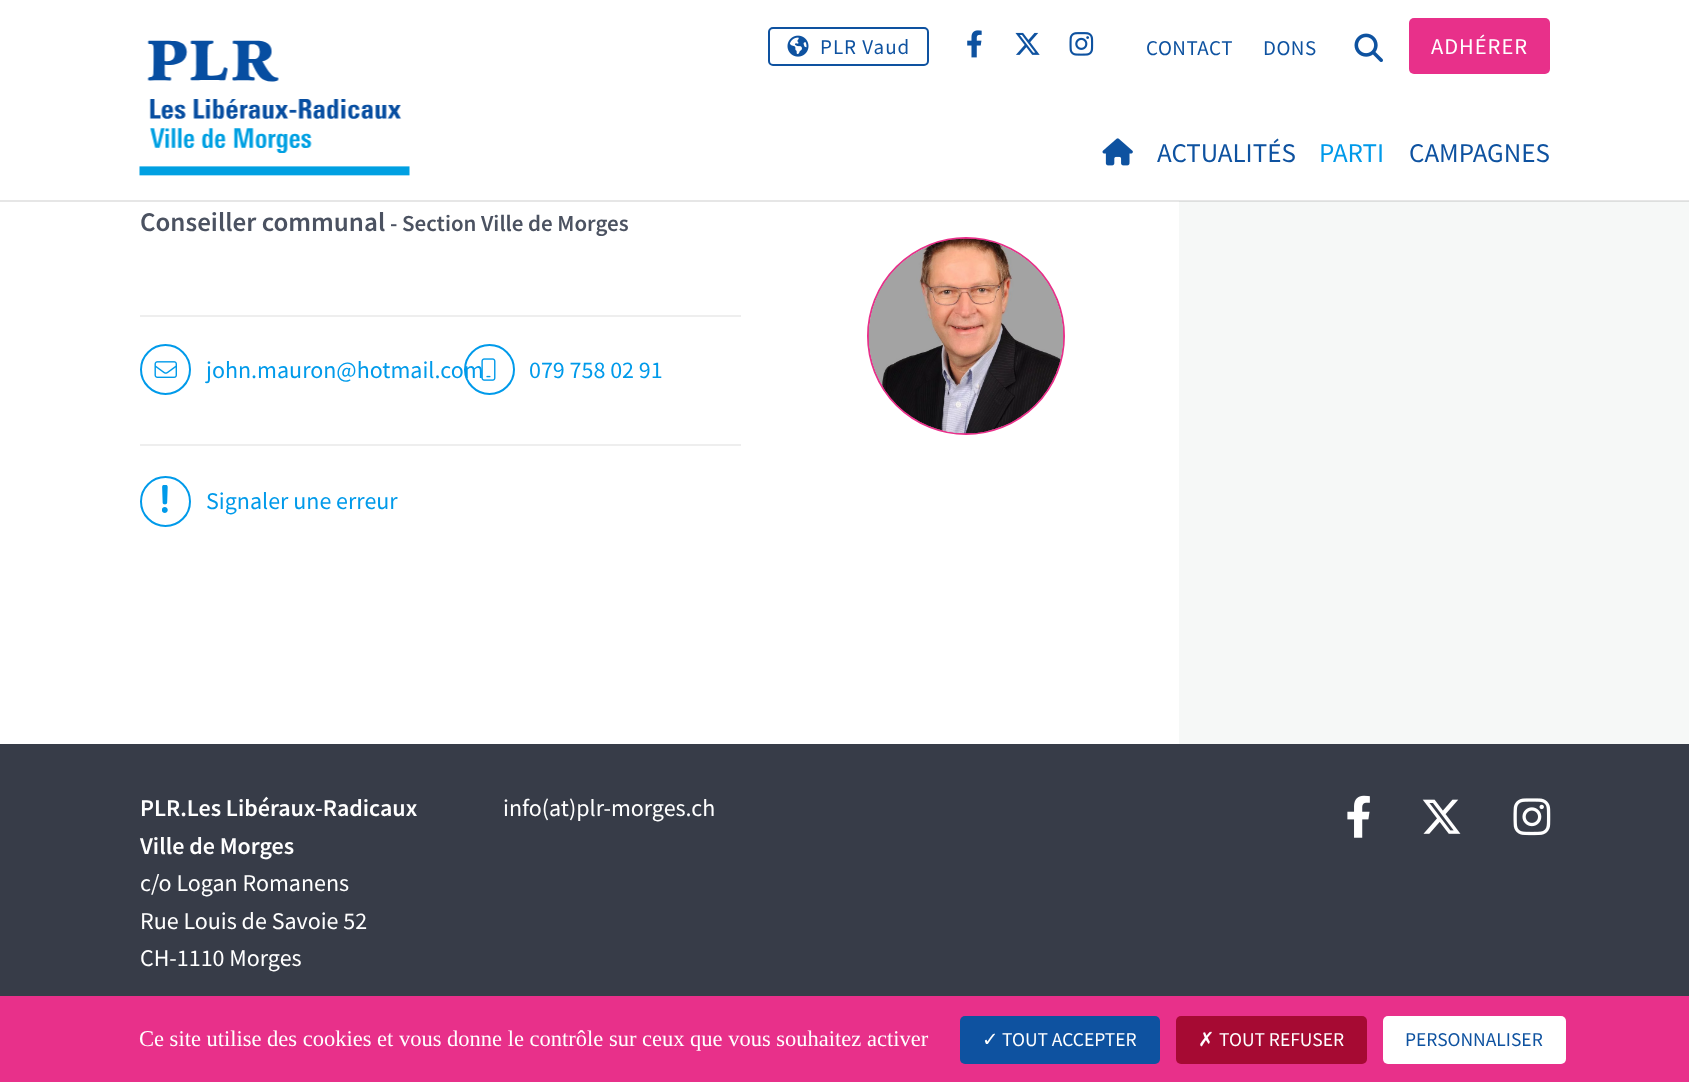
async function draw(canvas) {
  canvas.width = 1689
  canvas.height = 1082
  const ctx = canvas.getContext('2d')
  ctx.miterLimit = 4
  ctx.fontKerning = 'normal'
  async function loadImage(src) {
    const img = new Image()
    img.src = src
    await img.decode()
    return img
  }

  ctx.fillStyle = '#fff'
  ctx.fillRect(0, 0, 1689, 1082)
  ctx.fillStyle = '#e6e6e6'
  ctx.fillRect(0, 200, 1689, 1)
  ctx.drawImage(await loadImage('image0.png'), 139, 40, 271, 136)
  ctx.beginPath()
  ctx.roundRect(769, 28, 159, 37, 4)
  ctx.strokeStyle = '#0e52a0'
  ctx.lineWidth = 2
  ctx.stroke()
  ctx.drawImage(await loadImage('image1.png'), 787, 35, 22, 22)
  ctx.letterSpacing = '1px'
  ctx.font = '21px Source Sans Pro'
  ctx.fillStyle = '#0e52a0'
  ctx.fillText('PLR Vaud', 820, 54)
  ctx.drawImage(await loadImage('image2.png'), 967, 30, 15, 28)
  ctx.drawImage(await loadImage('image3.png'), 1015, 32, 25, 23)
  ctx.drawImage(await loadImage('image4.png'), 1069, 32, 25, 24)
  ctx.letterSpacing = '0.5px'
  ctx.fillText('CONTACT', 1146, 55)
  ctx.fillText('DONS', 1263, 55)
  ctx.drawImage(await loadImage('image5.png'), 1354, 33, 29, 29)
  ctx.fillStyle = '#e8308a'
  ctx.beginPath()
  ctx.roundRect(1409, 18, 141, 56, 5)
  ctx.fill()
  ctx.letterSpacing = '1px'
  ctx.font = '22.5px Source Sans Pro'
  ctx.fillStyle = '#fff'
  ctx.fillText('ADHÉRER', 1431, 54)
  ctx.drawImage(await loadImage('image6.png'), 1102, 138, 31, 28)
  ctx.letterSpacing = '0px'
  ctx.font = '27px Source Sans Pro'
  ctx.fillStyle = '#0e52a0'
  ctx.fillText('ACTUALITÉS', 1157, 162)
  ctx.fillStyle = '#009aea'
  ctx.fillText('PARTI', 1319, 162)
  ctx.fillStyle = '#0e52a0'
  ctx.fillText('CAMPAGNES', 1409, 162)
  ctx.fillStyle = '#e6e6e6'
  ctx.fillRect(0, 201, 1179, 1)
  ctx.fillStyle = '#f6f8f7'
  ctx.fillRect(1179, 202, 510, 542)
  ctx.fillStyle = '#dddfde'
  ctx.fillRect(1179, 201, 510, 1)
  ctx.font = '600 27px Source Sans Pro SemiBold'
  ctx.fillStyle = '#4b5261'
  ctx.fillText('Conseiller communal', 140, 231)
  ctx.font = '600 23px Source Sans Pro SemiBold'
  ctx.fillText('- Section Ville de Morges', 390, 231)
  ctx.fillStyle = '#eee'
  ctx.fillRect(140, 315, 601, 2)
  ctx.beginPath()
  ctx.arc(165.5, 369.5, 24.5, 0, 2 * Math.PI)
  ctx.strokeStyle = '#009aea'
  ctx.stroke()
  ctx.drawImage(await loadImage('image7.png'), 154, 361, 23, 17)
  ctx.font = '24px Source Sans Pro'
  ctx.fillStyle = '#009aea'
  ctx.fillText('john.mauron@hotmail.com', 206, 378)
  ctx.beginPath()
  ctx.arc(489.5, 369.5, 24.5, 0, 2 * Math.PI)
  ctx.stroke()
  ctx.drawImage(await loadImage('image8.png'), 481, 358, 15, 23)
  ctx.fillText('079 758 02 91', 529, 378)
  ctx.fillStyle = '#eee'
  ctx.fillRect(140, 444, 601, 2)
  ctx.beginPath()
  ctx.arc(165.5, 501.5, 24.5, 0, 2 * Math.PI)
  ctx.stroke()
  ctx.drawImage(await loadImage('image9.png'), 162, 485, 6, 28)
  ctx.fillStyle = '#009aea'
  ctx.fillText('Signaler une erreur', 206, 509)
  ctx.beginPath()
  ctx.arc(966, 336, 98, 0, 2 * Math.PI)
  ctx.strokeStyle = '#e8308a'
  ctx.stroke()
  ctx.drawImage(await loadImage('image10.png'), 868, 238, 196, 196)
  ctx.fillStyle = '#373c48'
  ctx.fillRect(0, 744, 1689, 252)
  ctx.font = '600 24px Source Sans Pro SemiBold'
  ctx.fillStyle = '#fff'
  ctx.fillText('PLR.Les Libéraux-Radicaux', 140, 816)
  ctx.fillText('Ville de Morges', 140, 854)
  ctx.font = '24px Source Sans Pro'
  ctx.fillText('c/o Logan Romanens', 140, 891)
  ctx.fillText('Rue Louis de Savoie 52', 140, 929)
  ctx.fillText('CH-1110 Morges', 140, 966)
  ctx.fillText('info(at)plr-morges.ch', 503, 816)
  ctx.drawImage(await loadImage('image11.png'), 1347, 795, 23, 43)
  ctx.drawImage(await loadImage('image12.png'), 1422, 799, 39, 35)
  ctx.drawImage(await loadImage('image13.png'), 1513, 798, 38, 38)
  ctx.fillStyle = '#e8308a'
  ctx.fillRect(0, 996, 1689, 86)
  ctx.font = '22.5px Liberation Serif'
  ctx.fillStyle = '#fff'
  ctx.fillText('Ce site utilise des cookies et vous donne le contrôle sur ceux que vous souhaitez activer', 139, 1046)
  ctx.fillStyle = '#0e52a0'
  ctx.beginPath()
  ctx.roundRect(960, 1016, 200, 48, 5)
  ctx.fill()
  ctx.font = '19.5px DejaVu Sans'
  ctx.fillStyle = '#fff'
  ctx.fillText('✓', 982, 1046)
  ctx.font = '19.5px Source Sans Pro'
  ctx.fillText('TOUT ACCEPTER', 1002, 1046)
  ctx.fillStyle = '#a60a33'
  ctx.beginPath()
  ctx.roundRect(1176, 1016, 191, 48, 5)
  ctx.fill()
  ctx.font = '19.5px DejaVu Sans'
  ctx.fillStyle = '#fff'
  ctx.fillText('✗', 1198, 1046)
  ctx.font = '19.5px Source Sans Pro'
  ctx.fillText('TOUT REFUSER', 1219, 1046)
  ctx.beginPath()
  ctx.roundRect(1383, 1016, 183, 48, 5)
  ctx.fill()
  ctx.fillStyle = '#0e52a0'
  ctx.fillText('PERSONNALISER', 1405, 1046)
}

draw(document.querySelector('canvas'))
